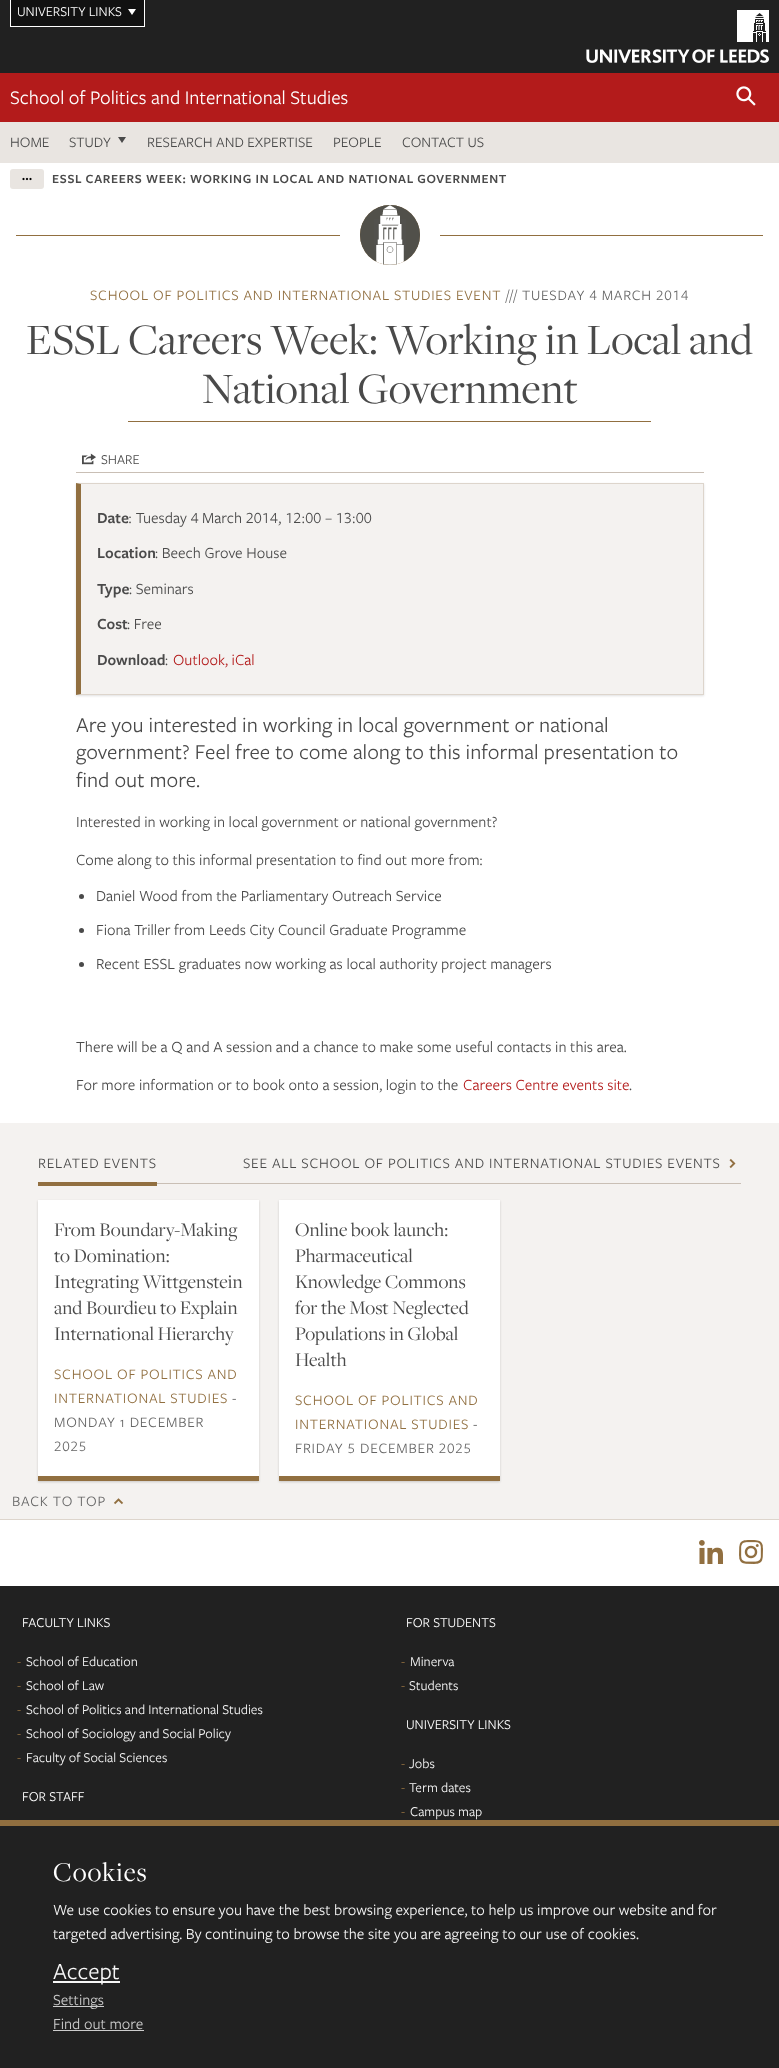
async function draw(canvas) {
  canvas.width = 779
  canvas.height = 2068
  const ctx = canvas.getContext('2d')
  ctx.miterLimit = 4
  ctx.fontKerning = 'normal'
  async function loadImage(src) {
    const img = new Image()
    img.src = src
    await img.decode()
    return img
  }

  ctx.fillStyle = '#fff'
  ctx.fillRect(0, 0, 779, 2068)
  ctx.fillStyle = '#212121'
  ctx.fillRect(0, 0, 779, 73)
  ctx.drawImage(await loadImage('image0.png'), 586, 10, 183, 53)
  ctx.fillStyle = '#111'
  ctx.fillRect(11, 0, 133, 26)
  ctx.fillStyle = '#fff'
  ctx.fillRect(144, 0, 1, 27)
  ctx.fillRect(10, 26, 135, 1)
  ctx.fillRect(10, 0, 1, 27)
  ctx.font = '14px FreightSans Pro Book'
  ctx.fillText('UNIVERSITY LINKS', 17, 16)
  ctx.beginPath()
  ctx.moveTo(136, 9)
  ctx.lineTo(132, 15)
  ctx.lineTo(128, 9)
  ctx.closePath()
  ctx.fill()
  ctx.fillStyle = '#b31b1b'
  ctx.fillRect(0, 73, 779, 49)
  ctx.font = '20px FreightSans Pro Book'
  ctx.fillStyle = '#fff'
  ctx.fillText('School of Politics and International Studies', 10, 104)
  ctx.drawImage(await loadImage('image1.png'), 736, 86, 20, 20)
  ctx.fillStyle = '#e9e5e1'
  ctx.fillRect(0, 122, 779, 41)
  ctx.font = '15px FreightSans Pro Book'
  ctx.fillStyle = '#4a4a4a'
  ctx.fillText('HOME', 10, 147)
  ctx.fillText('STUDY', 69, 147)
  ctx.beginPath()
  ctx.moveTo(126, 137)
  ctx.lineTo(122, 143)
  ctx.lineTo(118, 137)
  ctx.closePath()
  ctx.fill()
  ctx.fillText('RESEARCH AND EXPERTISE', 147, 147)
  ctx.fillText('PEOPLE', 333, 147)
  ctx.fillText('CONTACT US', 402, 147)
  ctx.fillStyle = '#e9e5e1'
  ctx.beginPath()
  ctx.roundRect(10, 169, 34, 20, 3)
  ctx.fill()
  ctx.drawImage(await loadImage('image2.png'), 22, 177, 10, 4)
  ctx.letterSpacing = '0.65px'
  ctx.font = '600 13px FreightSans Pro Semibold'
  ctx.fillStyle = '#4a4a4a'
  ctx.fillText('ESSL CAREERS WEEK: WORKING IN LOCAL AND NATIONAL GOVERNMENT', 52, 183)
  ctx.fillStyle = '#916f40'
  ctx.fillRect(16, 235, 324, 1)
  ctx.beginPath()
  ctx.arc(390, 235, 30, 0, 2 * Math.PI)
  ctx.fill()
  ctx.drawImage(await loadImage('image3.png'), 360, 205, 60, 60)
  ctx.fillRect(440, 235, 323, 1)
  ctx.letterSpacing = '0.75px'
  ctx.font = '15px FreightSans Pro Book'
  ctx.fillText('SCHOOL OF POLITICS AND INTERNATIONAL STUDIES EVENT', 90, 300)
  ctx.fillStyle = '#666'
  ctx.fillText('///', 506, 300)
  ctx.font = '15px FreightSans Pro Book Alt'
  ctx.fillText('TUESDAY 4 MARCH 2014', 522, 300)
  ctx.letterSpacing = '0px'
  ctx.font = '45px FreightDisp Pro'
  ctx.fillStyle = '#4a4a4a'
  ctx.fillText('ESSL Careers Week: Working in Local and', 26, 354)
  ctx.fillText('National Government', 202, 403)
  ctx.fillStyle = '#916f40'
  ctx.fillRect(128, 421, 523, 1)
  ctx.drawImage(await loadImage('image4.png'), 82, 453, 14, 12)
  ctx.font = '14px FreightSans Pro Book'
  ctx.fillStyle = '#4a4a4a'
  ctx.fillText('SHARE', 101, 464)
  ctx.fillStyle = '#c9bfb5'
  ctx.fillRect(76, 472, 628, 1)
  ctx.fillStyle = '#0000001f'
  ctx.filter = 'blur(1px)'
  ctx.beginPath()
  ctx.rect(76, 484, 628, 212)
  ctx.fill()
  ctx.filter = 'none'
  ctx.fillStyle = '#f4f2f0'
  ctx.fillRect(81, 484, 622, 210)
  ctx.fillStyle = '#ddd5cc'
  ctx.beginPath()
  ctx.moveTo(76, 483)
  ctx.lineTo(704, 483)
  ctx.lineTo(703, 484)
  ctx.lineTo(81, 484)
  ctx.closePath()
  ctx.fill()
  ctx.fillRect(703, 483, 1, 212)
  ctx.beginPath()
  ctx.moveTo(704, 695)
  ctx.lineTo(76, 695)
  ctx.lineTo(81, 694)
  ctx.lineTo(703, 694)
  ctx.closePath()
  ctx.fill()
  ctx.fillStyle = '#916f40'
  ctx.beginPath()
  ctx.moveTo(76, 695)
  ctx.lineTo(76, 483)
  ctx.lineTo(81, 484)
  ctx.lineTo(81, 694)
  ctx.closePath()
  ctx.fill()
  ctx.font = '600 16px FreightSans Pro Semibold'
  ctx.fillStyle = '#4a4a4a'
  ctx.fillText('Date', 97, 523)
  ctx.font = '16px FreightSans Pro Book Alt'
  ctx.fillText(': Tuesday 4 March 2014, 12:00 – 13:00', 128, 523)
  ctx.font = '600 16px FreightSans Pro Semibold'
  ctx.fillText('Location', 97, 558)
  ctx.font = '16px FreightSans Pro Book'
  ctx.fillText(': Beech Grove House', 155, 558)
  ctx.font = '600 16px FreightSans Pro Semibold'
  ctx.fillText('Type', 97, 594)
  ctx.font = '16px FreightSans Pro Book'
  ctx.fillText(': Seminars', 129, 594)
  ctx.font = '600 16px FreightSans Pro Semibold'
  ctx.fillText('Cost', 97, 629)
  ctx.font = '16px FreightSans Pro Book'
  ctx.fillText(': Free', 127, 629)
  ctx.font = '600 16px FreightSans Pro Semibold'
  ctx.fillText('Download', 97, 665)
  ctx.font = '16px FreightSans Pro Book'
  ctx.fillText(':', 165, 665)
  ctx.fillStyle = '#b31b1b'
  ctx.fillText('Outlook, iCal', 173, 665)
  ctx.font = '22px FreightSans Pro Book'
  ctx.fillStyle = '#4a4a4a'
  ctx.fillText('Are you interested in working in local government or national', 76, 732)
  ctx.fillText('government? Feel free to come along to this informal presentation to', 76, 759)
  ctx.fillText('find out more.', 76, 787)
  ctx.font = '16px FreightSans Pro Book'
  ctx.fillText('Interested in working in local government or national government?', 76, 827)
  ctx.fillText('Come along to this informal presentation to find out more from:', 76, 865)
  ctx.beginPath()
  ctx.arc(81.5, 896.5, 2.5, 0, 2 * Math.PI)
  ctx.fill()
  ctx.fillText('Daniel Wood from the Parliamentary Outreach Service', 96, 901)
  ctx.beginPath()
  ctx.arc(81.5, 930.5, 2.5, 0, 2 * Math.PI)
  ctx.fill()
  ctx.fillText('Fiona Triller from Leeds City Council Graduate Programme', 96, 935)
  ctx.beginPath()
  ctx.arc(81.5, 964.5, 2.5, 0, 2 * Math.PI)
  ctx.fill()
  ctx.fillText('Recent ESSL graduates now working as local authority project managers', 96, 969)
  ctx.fillText('There will be a Q and A session and a chance to make some useful contacts in this area.', 76, 1052)
  ctx.fillText('For more information or to book onto a session, login to the', 76, 1090)
  ctx.fillStyle = '#b31b1b'
  ctx.fillText('Careers Centre events site', 463, 1090)
  ctx.fillStyle = '#4a4a4a'
  ctx.fillText('.', 629, 1090)
  ctx.fillStyle = '#f4f2f0'
  ctx.fillRect(0, 1123, 779, 396)
  ctx.fillStyle = '#c9bfb5'
  ctx.fillRect(157, 1183, 584, 1)
  ctx.letterSpacing = '0.75px'
  ctx.font = '15px FreightSans Pro Book'
  ctx.fillStyle = '#4a4a4a'
  ctx.fillText('RELATED EVENTS', 38, 1168)
  ctx.fillStyle = '#916f40'
  ctx.fillRect(38, 1182, 119, 4)
  ctx.fillStyle = '#4a4a4a'
  ctx.fillText('SEE ALL SCHOOL OF POLITICS AND INTERNATIONAL STUDIES EVENTS', 243, 1168)
  ctx.drawImage(await loadImage('image5.png'), 729, 1158, 7, 11)
  ctx.fillStyle = '#0000002b'
  ctx.filter = 'blur(1px)'
  ctx.beginPath()
  ctx.rect(38, 1201, 221, 281)
  ctx.fill()
  ctx.filter = 'none'
  ctx.fillStyle = '#fff'
  ctx.fillRect(38, 1200, 221, 276)
  ctx.fillStyle = '#916f40'
  ctx.fillRect(38, 1476, 221, 5)
  ctx.letterSpacing = '0px'
  ctx.font = '20px FreightDisp Pro'
  ctx.fillStyle = '#4a4a4a'
  ctx.fillText('From Boundary-Making', 54, 1236)
  ctx.fillText('to Domination:', 54, 1262)
  ctx.fillText('Integrating Wittgenstein', 54, 1288)
  ctx.fillText('and Bourdieu to Explain', 54, 1314)
  ctx.fillText('International Hierarchy', 54, 1340)
  ctx.letterSpacing = '0.75px'
  ctx.font = '15px FreightSans Pro Book'
  ctx.fillStyle = '#916f40'
  ctx.fillText('SCHOOL OF POLITICS AND', 54, 1379)
  ctx.fillText('INTERNATIONAL STUDIES', 54, 1403)
  ctx.fillStyle = '#666'
  ctx.fillText('-', 232, 1403)
  ctx.fillText('MONDAY 1 DECEMBER', 54, 1427)
  ctx.font = '15px FreightSans Pro Book Alt'
  ctx.fillText('2025', 54, 1451)
  ctx.fillStyle = '#0000002b'
  ctx.filter = 'blur(1px)'
  ctx.beginPath()
  ctx.rect(279, 1201, 221, 281)
  ctx.fill()
  ctx.filter = 'none'
  ctx.fillStyle = '#fff'
  ctx.fillRect(279, 1200, 221, 276)
  ctx.fillStyle = '#916f40'
  ctx.fillRect(279, 1476, 221, 5)
  ctx.letterSpacing = '0px'
  ctx.font = '20px FreightDisp Pro'
  ctx.fillStyle = '#4a4a4a'
  ctx.fillText('Online book launch:', 295, 1236)
  ctx.fillText('Pharmaceutical', 295, 1262)
  ctx.fillText('Knowledge Commons', 295, 1288)
  ctx.fillText('for the Most Neglected', 295, 1314)
  ctx.fillText('Populations in Global', 295, 1340)
  ctx.fillText('Health', 295, 1366)
  ctx.letterSpacing = '0.75px'
  ctx.font = '15px FreightSans Pro Book'
  ctx.fillStyle = '#916f40'
  ctx.fillText('SCHOOL OF POLITICS AND', 295, 1405)
  ctx.fillText('INTERNATIONAL STUDIES', 295, 1429)
  ctx.fillStyle = '#666'
  ctx.fillText('-', 473, 1429)
  ctx.font = '15px FreightSans Pro Book Alt'
  ctx.fillText('FRIDAY 5 DECEMBER 2025', 295, 1453)
  ctx.font = '15px FreightSans Pro Book'
  ctx.fillText('BACK TO TOP', 12, 1506)
  ctx.drawImage(await loadImage('image6.png'), 113, 1498, 11, 7)
  ctx.fillStyle = '#ddd5cc'
  ctx.fillRect(0, 1519, 779, 1)
  ctx.drawImage(await loadImage('image7.png'), 699, 1540, 24, 24)
  ctx.drawImage(await loadImage('image8.png'), 739, 1540, 24, 24)
  ctx.fillStyle = '#212121'
  ctx.fillRect(0, 1586, 779, 234)
  ctx.letterSpacing = '0px'
  ctx.font = '14px FreightSans Pro Book'
  ctx.fillStyle = '#fff'
  ctx.fillText('FACULTY LINKS', 22, 1627)
  ctx.fillStyle = '#916f40'
  ctx.fillText('-', 17, 1666)
  ctx.fillStyle = '#f7f7f7'
  ctx.fillText('School of Education', 26, 1666)
  ctx.fillStyle = '#916f40'
  ctx.fillText('-', 17, 1690)
  ctx.fillStyle = '#f7f7f7'
  ctx.fillText('School of Law', 26, 1690)
  ctx.fillStyle = '#916f40'
  ctx.fillText('-', 17, 1714)
  ctx.fillStyle = '#f7f7f7'
  ctx.fillText('School of Politics and International Studies', 26, 1714)
  ctx.fillStyle = '#916f40'
  ctx.fillText('-', 17, 1738)
  ctx.fillStyle = '#f7f7f7'
  ctx.fillText('School of Sociology and Social Policy', 26, 1738)
  ctx.fillStyle = '#916f40'
  ctx.fillText('-', 17, 1762)
  ctx.fillStyle = '#f7f7f7'
  ctx.fillText('Faculty of Social Sciences', 26, 1762)
  ctx.fillStyle = '#fff'
  ctx.fillText('FOR STAFF', 22, 1801)
  ctx.fillText('FOR STUDENTS', 406, 1627)
  ctx.fillStyle = '#916f40'
  ctx.fillText('-', 401, 1666)
  ctx.fillStyle = '#f7f7f7'
  ctx.fillText('Minerva', 410, 1666)
  ctx.fillStyle = '#916f40'
  ctx.fillText('-', 401, 1690)
  ctx.fillStyle = '#f7f7f7'
  ctx.fillText('Students', 409, 1690)
  ctx.fillStyle = '#fff'
  ctx.fillText('UNIVERSITY LINKS', 406, 1729)
  ctx.fillStyle = '#916f40'
  ctx.fillText('-', 401, 1768)
  ctx.fillStyle = '#f7f7f7'
  ctx.fillText('Jobs', 409, 1768)
  ctx.fillStyle = '#916f40'
  ctx.fillText('-', 401, 1792)
  ctx.fillStyle = '#f7f7f7'
  ctx.fillText('Term dates', 409, 1792)
  ctx.fillStyle = '#916f40'
  ctx.fillText('-', 401, 1816)
  ctx.fillStyle = '#f7f7f7'
  ctx.fillText('Campus map', 410, 1816)
  ctx.fillStyle = '#212121'
  ctx.fillRect(0, 1826, 779, 242)
  ctx.fillStyle = '#916f40'
  ctx.fillRect(0, 1820, 779, 6)
  ctx.letterSpacing = '1px'
  ctx.font = '28px FreightDisp Pro'
  ctx.fillStyle = '#fff'
  ctx.fillText('Cookies', 53, 1881)
  ctx.letterSpacing = '0px'
  ctx.font = '16px FreightSans Pro Book'
  ctx.fillStyle = '#f7f7f7'
  ctx.fillText('We use cookies to ensure you have the best browsing experience, to help us improve our website and for', 53, 1915)
  ctx.fillText('targeted advertising. By continuing to browse the site you are agreeing to our use of cookies.', 53, 1939)
  ctx.fillRect(53, 1981, 67, 2)
  ctx.font = '24px FreightSans Pro Book'
  ctx.fillText('Accept', 53, 1979)
  ctx.fillStyle = '#ccc'
  ctx.fillRect(53, 2006, 51, 1)
  ctx.font = '16px FreightSans Pro Book'
  ctx.fillText('Settings', 53, 2005)
  ctx.fillText('Find out more', 53, 2029)
  ctx.fillRect(53, 2030, 91, 1)
}

draw(document.querySelector('canvas'))
